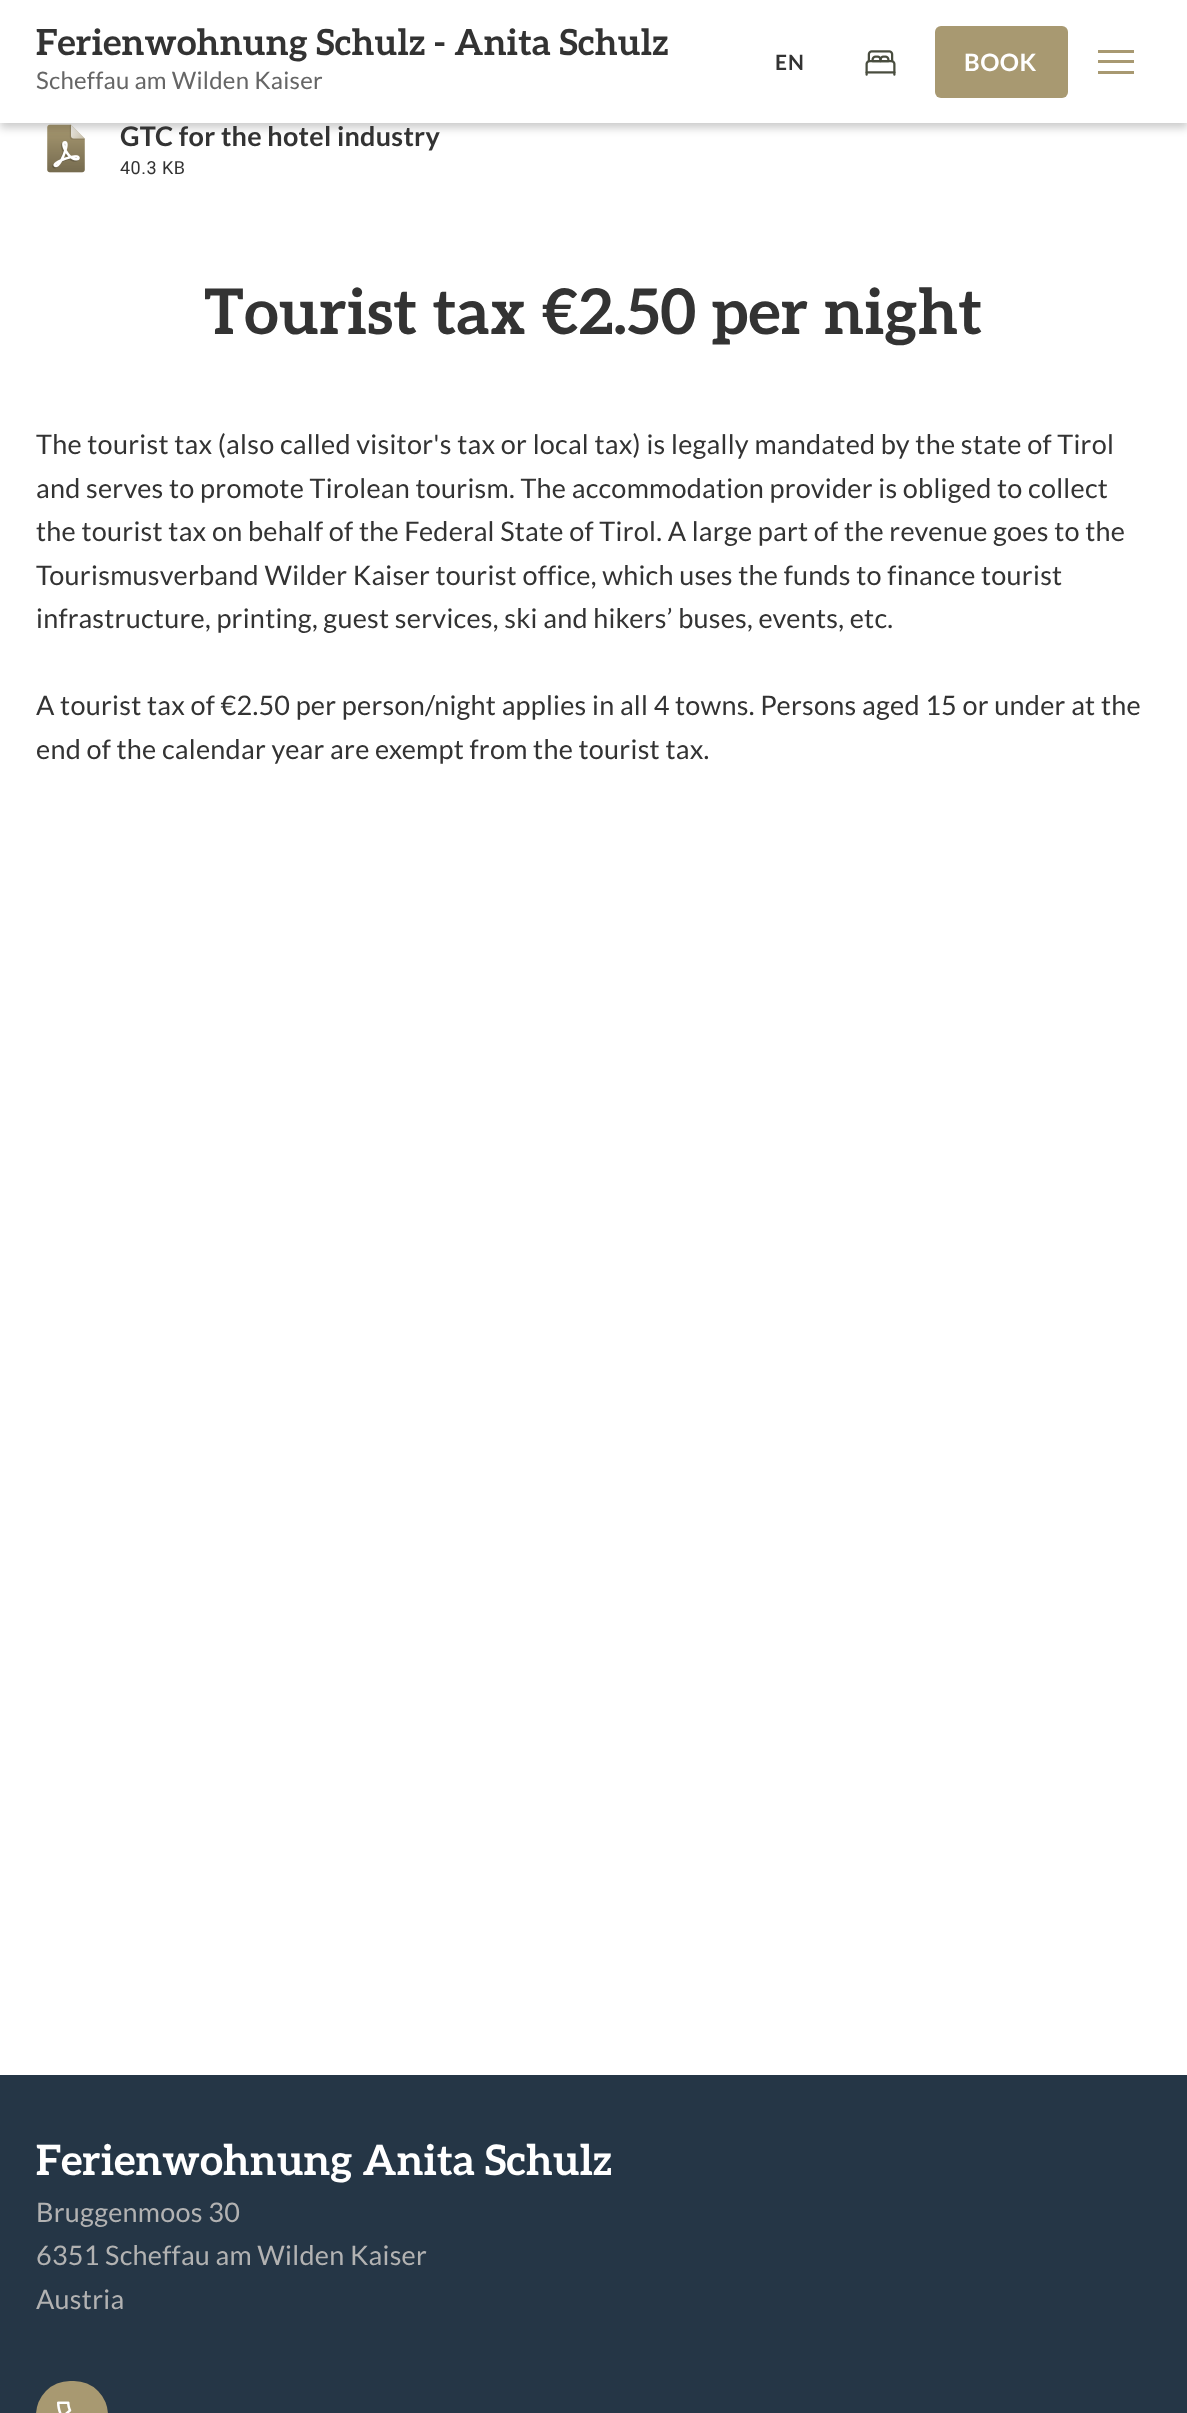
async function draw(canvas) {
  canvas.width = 1187
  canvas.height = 2413
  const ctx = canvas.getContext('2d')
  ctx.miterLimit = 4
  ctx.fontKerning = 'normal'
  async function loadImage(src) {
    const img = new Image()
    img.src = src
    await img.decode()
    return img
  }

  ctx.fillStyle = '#fff'
  ctx.fillRect(0, 0, 1187, 2413)
  ctx.drawImage(await loadImage('image1.png'), 47, 124, 38, 49)
  ctx.fillStyle = '#00000033'
  ctx.filter = 'blur(4px)'
  ctx.beginPath()
  ctx.rect(0, 5, 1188, 123)
  ctx.fill()
  ctx.filter = 'none'
  ctx.fillStyle = '#fff'
  ctx.fillRect(0, 0, 1187, 123)
  ctx.letterSpacing = '0.25px'
  ctx.font = 'bold 36px Aleo'
  ctx.fillStyle = '#333'
  ctx.fillText('Ferienwohnung Schulz - Anita Schulz', 36, 55)
  ctx.font = '24px Lato'
  ctx.fillStyle = '#666'
  ctx.fillText('Scheffau am Wilden Kaiser', 36, 89)
  ctx.letterSpacing = '1px'
  ctx.font = 'bold 21px Lato'
  ctx.fillStyle = '#333'
  ctx.fillText('EN', 775, 70)
  ctx.drawImage(await loadImage('image0.png'), 865, 50, 31, 26)
  ctx.fillStyle = '#a89971'
  ctx.beginPath()
  ctx.roundRect(935, 26, 133, 72, 6)
  ctx.fill()
  ctx.letterSpacing = '0.5px'
  ctx.font = 'bold 24px Lato'
  ctx.fillStyle = '#fff'
  ctx.fillText('BOOK', 964, 71)
  ctx.fillStyle = '#a89971'
  ctx.fillRect(1098, 50, 36, 3)
  ctx.fillRect(1098, 60, 36, 3)
  ctx.fillRect(1098, 71, 36, 3)
  ctx.letterSpacing = '0.25px'
  ctx.font = 'bold 27px Lato'
  ctx.fillStyle = '#333'
  ctx.fillText('GTC for the hotel industry', 120, 146)
  ctx.letterSpacing = '0.5px'
  ctx.font = '18px Roboto'
  ctx.fillText('40.3 KB', 120, 174)
  ctx.letterSpacing = '0.6px'
  ctx.font = 'bold 63px Aleo'
  ctx.fillText('Tourist tax €2.50 per night', 204, 334)
  ctx.letterSpacing = '0.25px'
  ctx.font = '27px Lato'
  ctx.fillText('The tourist tax (also called visitor\'s tax or local tax) is legally mandated by the state of Tirol', 36, 454)
  ctx.fillText('and serves to promote Tirolean tourism. The accommodation provider is obliged to collect', 36, 498)
  ctx.fillText('the tourist tax on behalf of the Federal State of Tirol. A large part of the revenue goes to the', 36, 541)
  ctx.fillText('Tourismusverband Wilder Kaiser tourist office, which uses the funds to finance tourist', 36, 585)
  ctx.fillText('infrastructure, printing, guest services, ski and hikers’ buses, events, etc.', 36, 628)
  ctx.fillText('A tourist tax of €2.50 per person/night applies in all 4 towns. Persons aged 15 or under at the', 36, 715)
  ctx.fillText('end of the calendar year are exempt from the tourist tax.', 36, 759)
  ctx.fillStyle = '#253646'
  ctx.fillRect(0, 2075, 1187, 338)
  ctx.font = 'bold 42px Aleo'
  ctx.fillStyle = '#fff'
  ctx.fillText('Ferienwohnung Anita Schulz', 36, 2175)
  ctx.font = '27px Lato'
  ctx.fillStyle = '#b2b2b2'
  ctx.fillText('Bruggenmoos 30', 36, 2222)
  ctx.fillText('6351 Scheffau am Wilden Kaiser', 36, 2265)
  ctx.fillText('Austria', 36, 2309)
  ctx.fillStyle = '#a89971'
  ctx.beginPath()
  ctx.roundRect(36, 2381, 72, 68, 36)
  ctx.fill()
  ctx.drawImage(await loadImage('image2.png'), 57, 2401, 15, 12)
}

draw(document.querySelector('canvas'))
